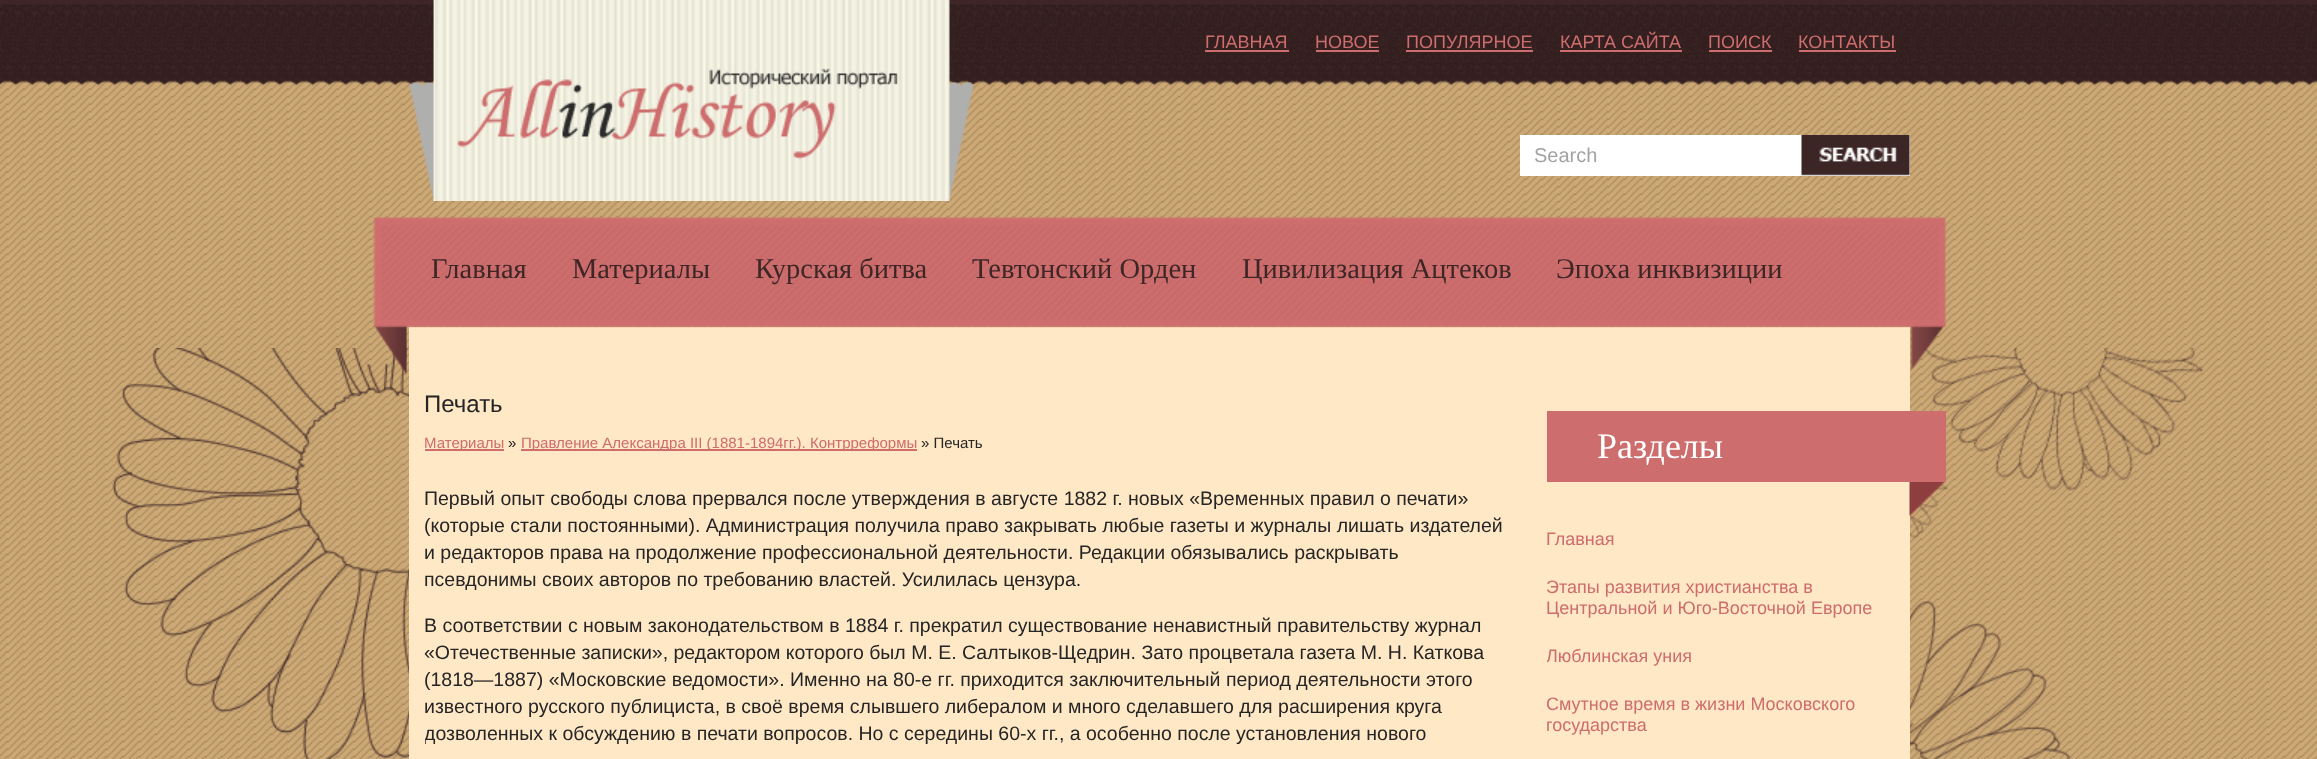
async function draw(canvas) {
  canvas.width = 2317
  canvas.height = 759
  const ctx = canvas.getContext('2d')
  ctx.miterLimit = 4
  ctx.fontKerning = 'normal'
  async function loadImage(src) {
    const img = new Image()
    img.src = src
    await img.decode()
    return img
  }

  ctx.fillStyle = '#fff'
  ctx.fillRect(0, 0, 2317, 759)
  ctx.drawImage(await loadImage('image0.png'), 0, 0, 2317, 759)
  ctx.drawImage(await loadImage('image1.png'), 409, 0, 565, 201)
  ctx.font = '18px Liberation Sans'
  ctx.fillStyle = '#cd6d6d'
  ctx.fillText('ГЛАВНАЯ', 1205, 48)
  ctx.fillRect(1205, 50, 84, 2)
  ctx.fillText('НОВОЕ', 1315, 48)
  ctx.fillRect(1316, 50, 63, 2)
  ctx.fillText('ПОПУЛЯРНОЕ', 1406, 48)
  ctx.fillRect(1406, 50, 127, 2)
  ctx.fillText('КАРТА САЙТА', 1560, 48)
  ctx.fillRect(1560, 50, 122, 2)
  ctx.fillText('ПОИСК', 1708, 48)
  ctx.fillRect(1709, 50, 63, 2)
  ctx.fillText('КОНТАКТЫ', 1798, 48)
  ctx.fillRect(1799, 50, 97, 2)
  ctx.fillStyle = '#fff'
  ctx.fillRect(1520, 135, 390, 41)
  ctx.font = '20px Liberation Sans'
  ctx.fillStyle = '#a3a3a3'
  ctx.fillText('Search', 1534, 162)
  ctx.drawImage(await loadImage('image2.png'), 1801, 135, 109, 41)
  ctx.drawImage(await loadImage('image4.png'), 112, 348, 2092, 411)
  ctx.fillStyle = '#ffe8c6'
  ctx.fillRect(409, 327, 1501, 432)
  ctx.drawImage(await loadImage('image3.png'), 373, 217, 1573, 158)
  ctx.font = '28.5px Liberation Serif'
  ctx.fillStyle = '#3e2626'
  ctx.fillText('Главная', 431, 278)
  ctx.fillText('Материалы', 572, 278)
  ctx.fillText('Курская битва', 755, 278)
  ctx.fillText('Тевтонский Орден', 972, 278)
  ctx.fillText('Цивилизация Ацтеков', 1242, 278)
  ctx.fillText('Эпоха инквизиции', 1556, 278)
  ctx.font = '24px Liberation Sans'
  ctx.fillStyle = '#252525'
  ctx.fillText('Печать', 424, 412)
  ctx.fillStyle = '#cd6d6d'
  ctx.fillRect(425, 449, 79, 2)
  ctx.font = '15px Liberation Sans'
  ctx.fillText('Материалы', 424, 448)
  ctx.fillStyle = '#252525'
  ctx.fillText('»', 508, 448)
  ctx.fillStyle = '#cd6d6d'
  ctx.fillRect(521, 449, 396, 2)
  ctx.fillText('Правление Александра ІІІ (1881-1894гг.). Контрреформы', 521, 448)
  ctx.fillStyle = '#252525'
  ctx.fillText('» Печать', 921, 448)
  ctx.font = '19.5px Liberation Sans'
  ctx.fillText('Первый опыт свободы слова прервался после утверждения в августе 1882 г. новых «Временных правил о печати»', 424, 505)
  ctx.fillText('(которые стали постоянными). Администрация получила право закрывать любые газеты и журналы лишать издателей', 424, 532)
  ctx.fillText('и редакторов права на продолжение профессиональной деятельности. Редакции обязывались раскрывать', 424, 559)
  ctx.fillText('псевдонимы своих авторов по требованию властей. Усилилась цензура.', 424, 586)
  ctx.fillText('В соответствии с новым законодательством в 1884 г. прекратил существование ненавистный правительству журнал', 424, 632)
  ctx.fillText('«Отечественные записки», редактором которого был М. Е. Салтыков-Щедрин. Зато процветала газета М. Н. Каткова', 424, 659)
  ctx.fillText('(1818—1887) «Московские ведомости». Именно на 80-е гг. приходится заключительный период деятельности этого', 424, 686)
  ctx.fillText('известного русского публициста, в своё время слывшего либералом и много сделавшего для расширения круга', 424, 713)
  ctx.save()
  ctx.beginPath()
  ctx.rect(425, 450, 1092, 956)
  ctx.clip()
  ctx.fillText('дозволенных к обсуждению в печати вопросов. Но с середины 60-х гг., а особенно после установления нового', 424, 740)
  ctx.restore()
  ctx.drawImage(await loadImage('image5.png'), 1909, 482, 37, 34)
  ctx.fillStyle = '#cd6d6d'
  ctx.fillRect(1547, 411, 399, 71)
  ctx.font = '36px Liberation Serif'
  ctx.fillStyle = '#fff'
  ctx.fillText('Разделы', 1597, 458)
  ctx.font = '18px Liberation Sans'
  ctx.fillStyle = '#cd6d6d'
  ctx.fillText('Главная', 1546, 545)
  ctx.fillText('Этапы развития христианства в', 1546, 593)
  ctx.fillText('Центральной и Юго-Восточной Европе', 1546, 614)
  ctx.save()
  ctx.beginPath()
  ctx.rect(1547, 630, 348, 51)
  ctx.clip()
  ctx.fillText('Люблинская уния', 1546, 662)
  ctx.restore()
  ctx.save()
  ctx.beginPath()
  ctx.rect(1547, 678, 348, 72)
  ctx.clip()
  ctx.fillText('Смутное время в жизни Московского', 1546, 710)
  ctx.restore()
  ctx.fillText('государства', 1546, 731)
}

draw(document.querySelector('canvas'))
